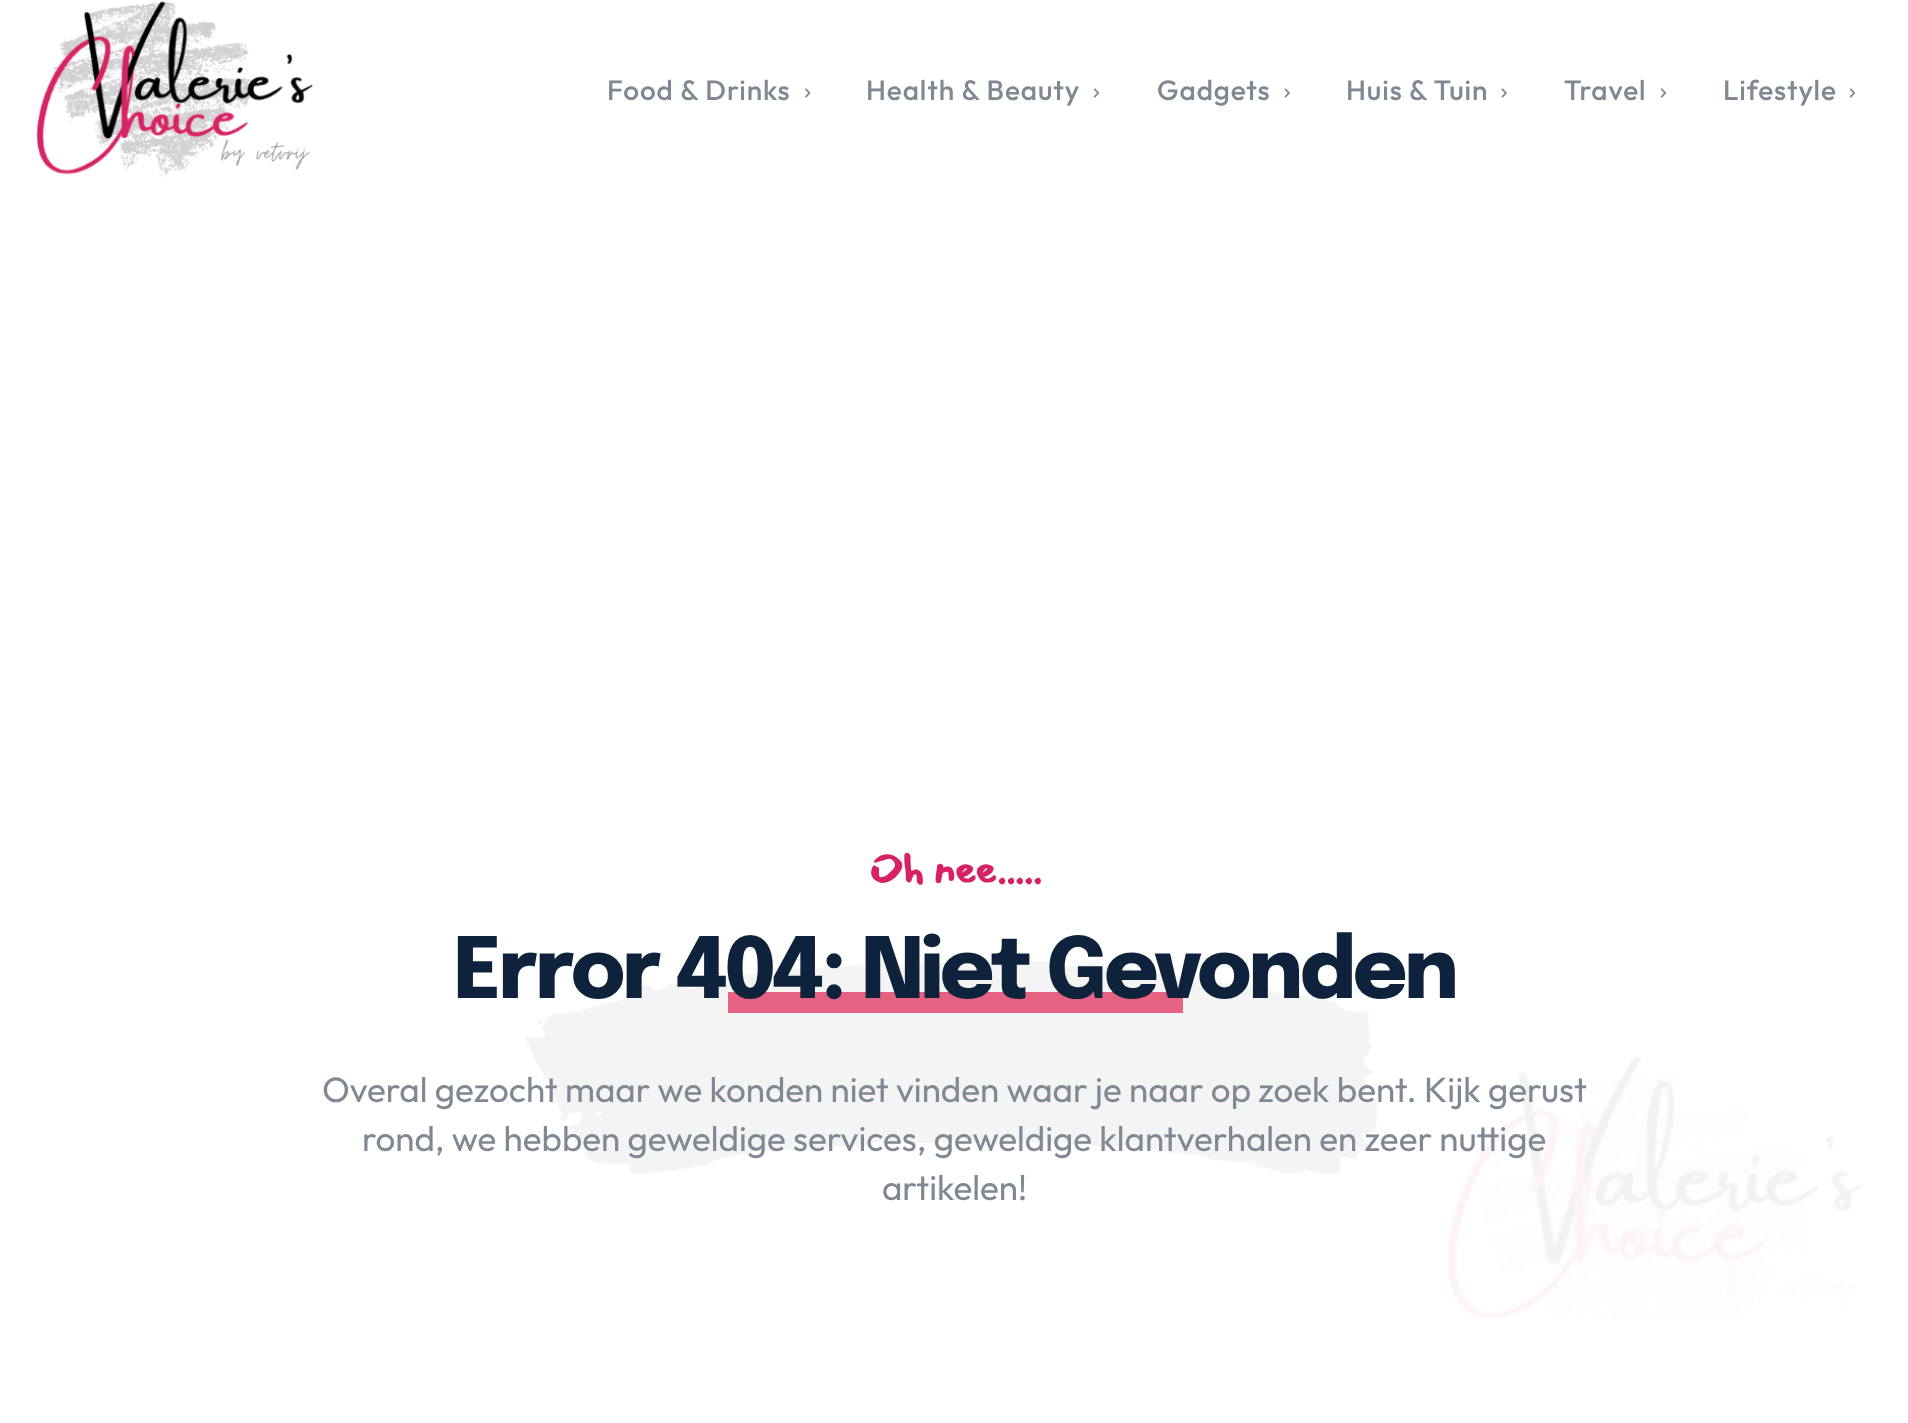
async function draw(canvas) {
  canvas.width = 1908
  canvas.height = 1423
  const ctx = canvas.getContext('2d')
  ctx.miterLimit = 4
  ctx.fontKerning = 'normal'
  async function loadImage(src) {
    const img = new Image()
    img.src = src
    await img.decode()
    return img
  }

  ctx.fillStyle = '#fff'
  ctx.fillRect(0, 0, 1908, 1423)
  ctx.drawImage(await loadImage('image0.png'), 36, 1, 277, 176)
  ctx.letterSpacing = '0.9px'
  ctx.font = '500 28px Outfit'
  ctx.fillStyle = '#808893'
  ctx.fillText('Food & Drinks', 607, 100)
  ctx.drawImage(await loadImage('image1.png'), 805, 88, 6, 10)
  ctx.fillText('Health & Beauty', 866, 100)
  ctx.drawImage(await loadImage('image2.png'), 1093, 88, 6, 10)
  ctx.fillText('Gadgets', 1157, 100)
  ctx.drawImage(await loadImage('image3.png'), 1284, 88, 6, 10)
  ctx.fillText('Huis & Tuin', 1346, 100)
  ctx.drawImage(await loadImage('image3.png'), 1501, 88, 6, 10)
  ctx.fillText('Travel', 1564, 100)
  ctx.drawImage(await loadImage('image2.png'), 1660, 88, 6, 10)
  ctx.fillText('Lifestyle', 1723, 100)
  ctx.drawImage(await loadImage('image2.png'), 1849, 88, 6, 10)
  ctx.letterSpacing = '-0.9px'
  ctx.wordSpacing = '1px'
  ctx.font = 'bold 42px Mansalva'
  ctx.fillStyle = '#d62264'
  ctx.fillText('Oh nee.....', 869, 883)
  ctx.drawImage(await loadImage('image4.png'), 525, 961, 852, 213)
  ctx.fillStyle = '#e56283'
  ctx.fillRect(728, 992, 455, 21)
  ctx.letterSpacing = '-3.5px'
  ctx.wordSpacing = '0px'
  ctx.font = '800 84px Epilogue'
  ctx.fillStyle = '#0e223b'
  ctx.fillText('Error 404: Niet Gevonden', 453, 998)
  ctx.drawImage(await loadImage('image5.png'), 1447, 1056, 417, 262)
  ctx.letterSpacing = '0px'
  ctx.font = '35px Outfit'
  ctx.fillStyle = '#808893'
  ctx.fillText('Overal gezocht maar we konden niet vinden waar je naar op zoek bent. Kijk gerust', 322, 1102)
  ctx.fillText('rond, we hebben geweldige services, geweldige klantverhalen en zeer nuttige', 362, 1151)
  ctx.fillText('artikelen!', 882, 1200)
}

draw(document.querySelector('canvas'))
